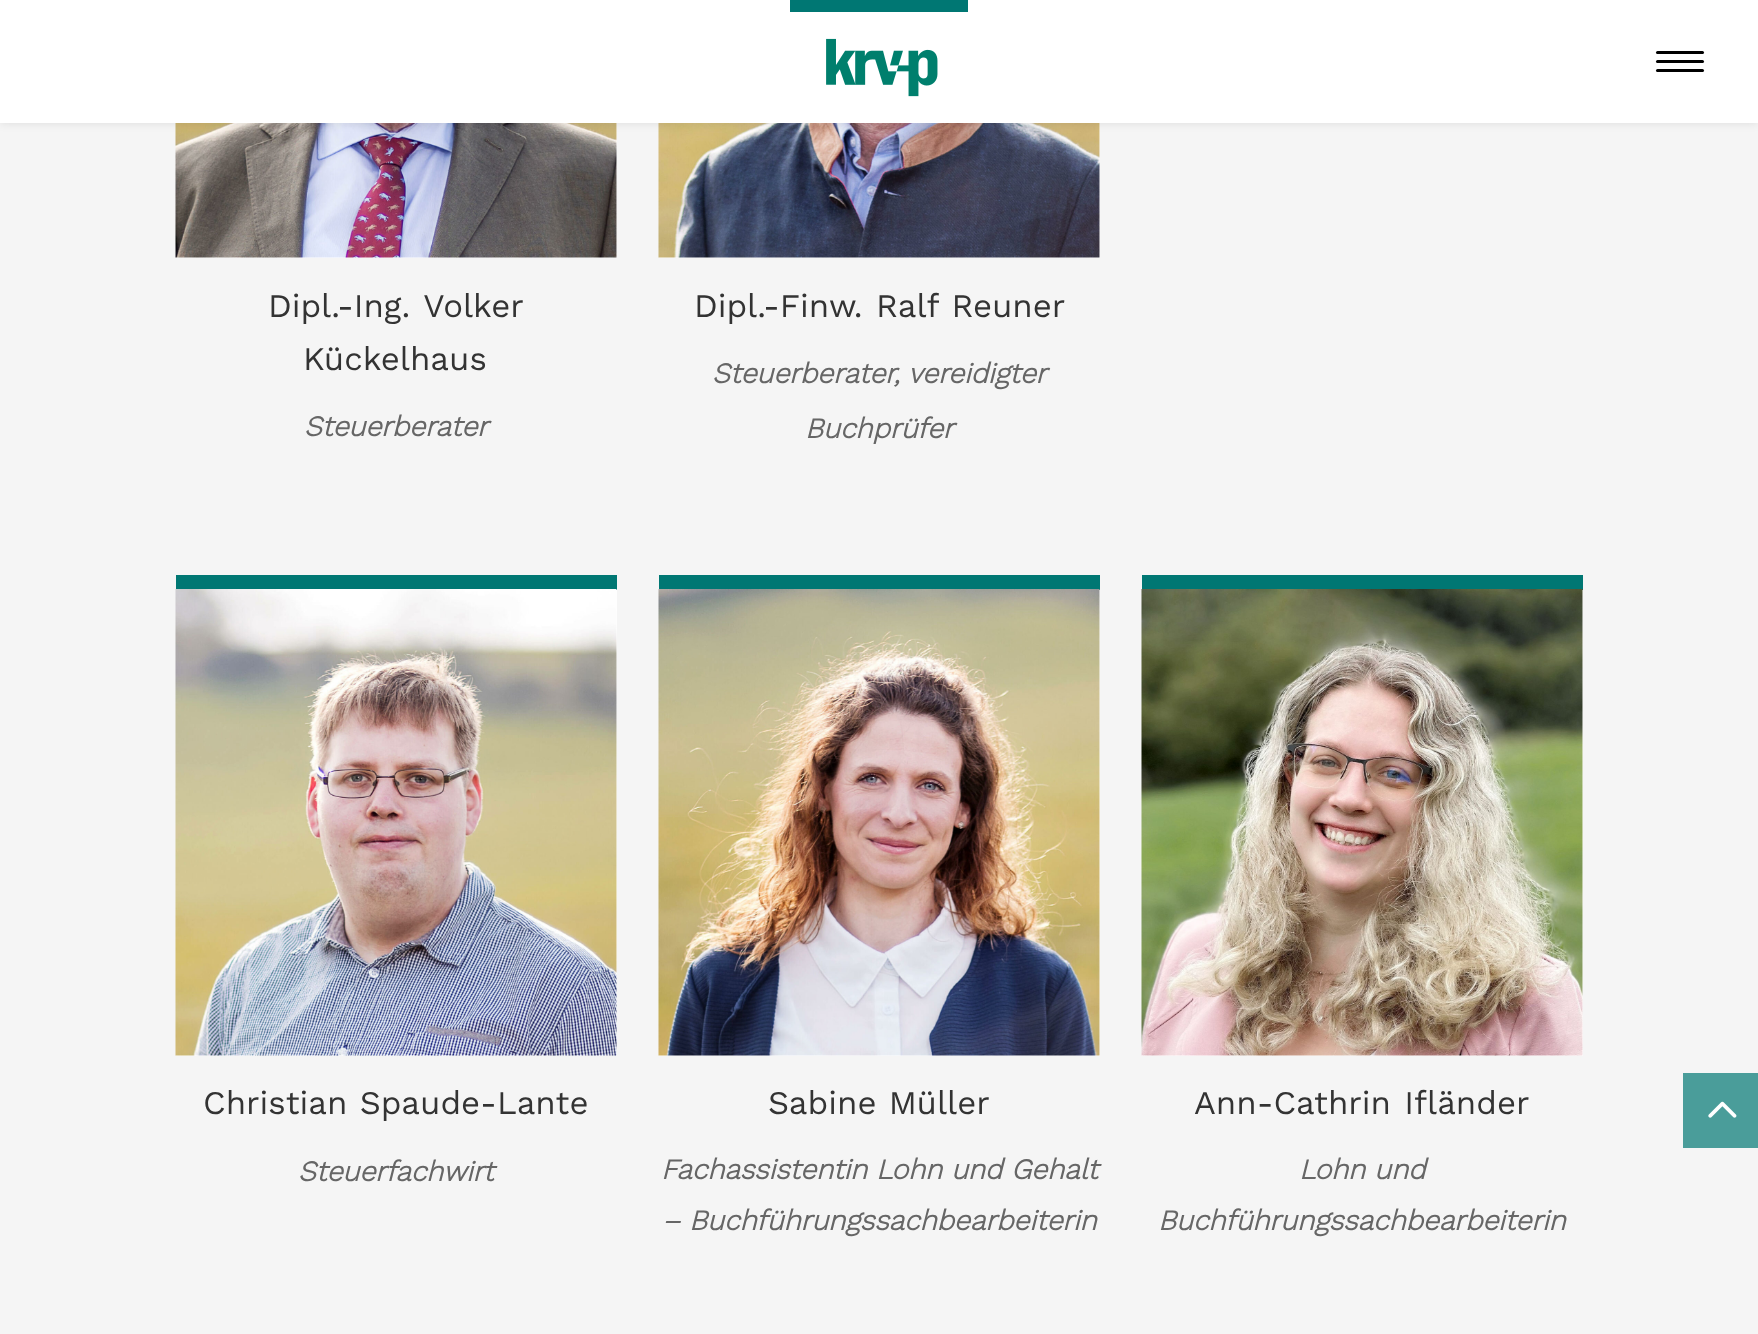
async function draw(canvas) {
  canvas.width = 1758
  canvas.height = 1334
  const ctx = canvas.getContext('2d')
  ctx.miterLimit = 4
  ctx.fontKerning = 'normal'
  async function loadImage(src) {
    const img = new Image()
    img.src = src
    await img.decode()
    return img
  }

  ctx.fillStyle = '#f5f5f5'
  ctx.fillRect(0, 0, 1758, 1334)
  ctx.fillStyle = '#fff'
  ctx.fillRect(176, 123, 441, 135)
  ctx.drawImage(await loadImage('image1.png'), 175, 123, 442, 135)
  ctx.fillRect(659, 123, 441, 135)
  ctx.drawImage(await loadImage('image2.png'), 658, 123, 442, 135)
  ctx.fillStyle = '#0000001a'
  ctx.filter = 'blur(5px)'
  ctx.beginPath()
  ctx.rect(0, 0, 1758, 123)
  ctx.fill()
  ctx.filter = 'none'
  ctx.fillStyle = '#fff'
  ctx.fillRect(0, 0, 1758, 123)
  ctx.fillStyle = '#007773'
  ctx.fillRect(790, 0, 178, 12)
  ctx.drawImage(await loadImage('image0.png'), 826, 38, 112, 59)
  ctx.fillStyle = '#000'
  ctx.beginPath()
  ctx.roundRect(1656, 51, 48, 3, 1.5)
  ctx.fill()
  ctx.beginPath()
  ctx.roundRect(1656, 60, 48, 3, 1.5)
  ctx.fill()
  ctx.beginPath()
  ctx.roundRect(1656, 69, 48, 3, 1.5)
  ctx.fill()
  ctx.wordSpacing = '3px'
  ctx.font = '33px Work Sans'
  ctx.fillStyle = '#333'
  ctx.fillText('Dipl.-Ing. Volker', 268, 317)
  ctx.wordSpacing = '0px'
  ctx.fillText('Kückelhaus', 303, 370)
  ctx.font = 'italic bold 28.5px Work Sans'
  ctx.fillStyle = '#666'
  ctx.fillText('Steuerberater', 304, 436)
  ctx.wordSpacing = '2px'
  ctx.font = '33px Work Sans'
  ctx.fillStyle = '#333'
  ctx.fillText('Dipl.-Finw. Ralf Reuner', 694, 317)
  ctx.wordSpacing = '0px'
  ctx.font = 'italic bold 28.5px Work Sans'
  ctx.fillStyle = '#666'
  ctx.fillText('Steuerberater, vereidigter', 712, 383)
  ctx.fillText('Buchprüfer', 805, 438)
  ctx.fillStyle = '#fff'
  ctx.fillRect(176, 590, 441, 466)
  ctx.fillStyle = '#007773'
  ctx.fillRect(176, 575, 441, 15)
  ctx.drawImage(await loadImage('image3.png'), 175, 589, 442, 467)
  ctx.wordSpacing = '1px'
  ctx.font = '33px Work Sans'
  ctx.fillStyle = '#333'
  ctx.fillText('Christian Spaude-Lante', 203, 1114)
  ctx.wordSpacing = '0px'
  ctx.font = 'italic bold 28.5px Work Sans'
  ctx.fillStyle = '#666'
  ctx.fillText('Steuerfachwirt', 298, 1181)
  ctx.fillStyle = '#fff'
  ctx.fillRect(659, 590, 441, 466)
  ctx.fillStyle = '#007773'
  ctx.fillRect(659, 575, 441, 15)
  ctx.drawImage(await loadImage('image4.png'), 658, 589, 442, 467)
  ctx.wordSpacing = '1px'
  ctx.font = '33px Work Sans'
  ctx.fillStyle = '#333'
  ctx.fillText('Sabine Müller', 768, 1114)
  ctx.wordSpacing = '0px'
  ctx.font = 'italic bold 28.5px Work Sans'
  ctx.fillStyle = '#666'
  ctx.fillText('Fachassistentin Lohn und Gehalt', 661, 1179)
  ctx.fillText('– Buchführungssachbearbeiterin', 662, 1230)
  ctx.fillStyle = '#fff'
  ctx.fillRect(1142, 590, 441, 466)
  ctx.fillStyle = '#007773'
  ctx.fillRect(1142, 575, 441, 15)
  ctx.drawImage(await loadImage('image5.png'), 1141, 589, 442, 467)
  ctx.wordSpacing = '2px'
  ctx.font = '33px Work Sans'
  ctx.fillStyle = '#333'
  ctx.fillText('Ann-Cathrin Ifländer', 1194, 1114)
  ctx.wordSpacing = '0px'
  ctx.font = 'italic bold 28.5px Work Sans'
  ctx.fillStyle = '#666'
  ctx.fillText('Lohn und', 1299, 1179)
  ctx.fillText('Buchführungssachbearbeiterin', 1158, 1230)
  ctx.fillStyle = '#4a9d9a'
  ctx.fillRect(1683, 1073, 75, 75)
  ctx.drawImage(await loadImage('image6.png'), 1708, 1101, 29, 17)
}

draw(document.querySelector('canvas'))
